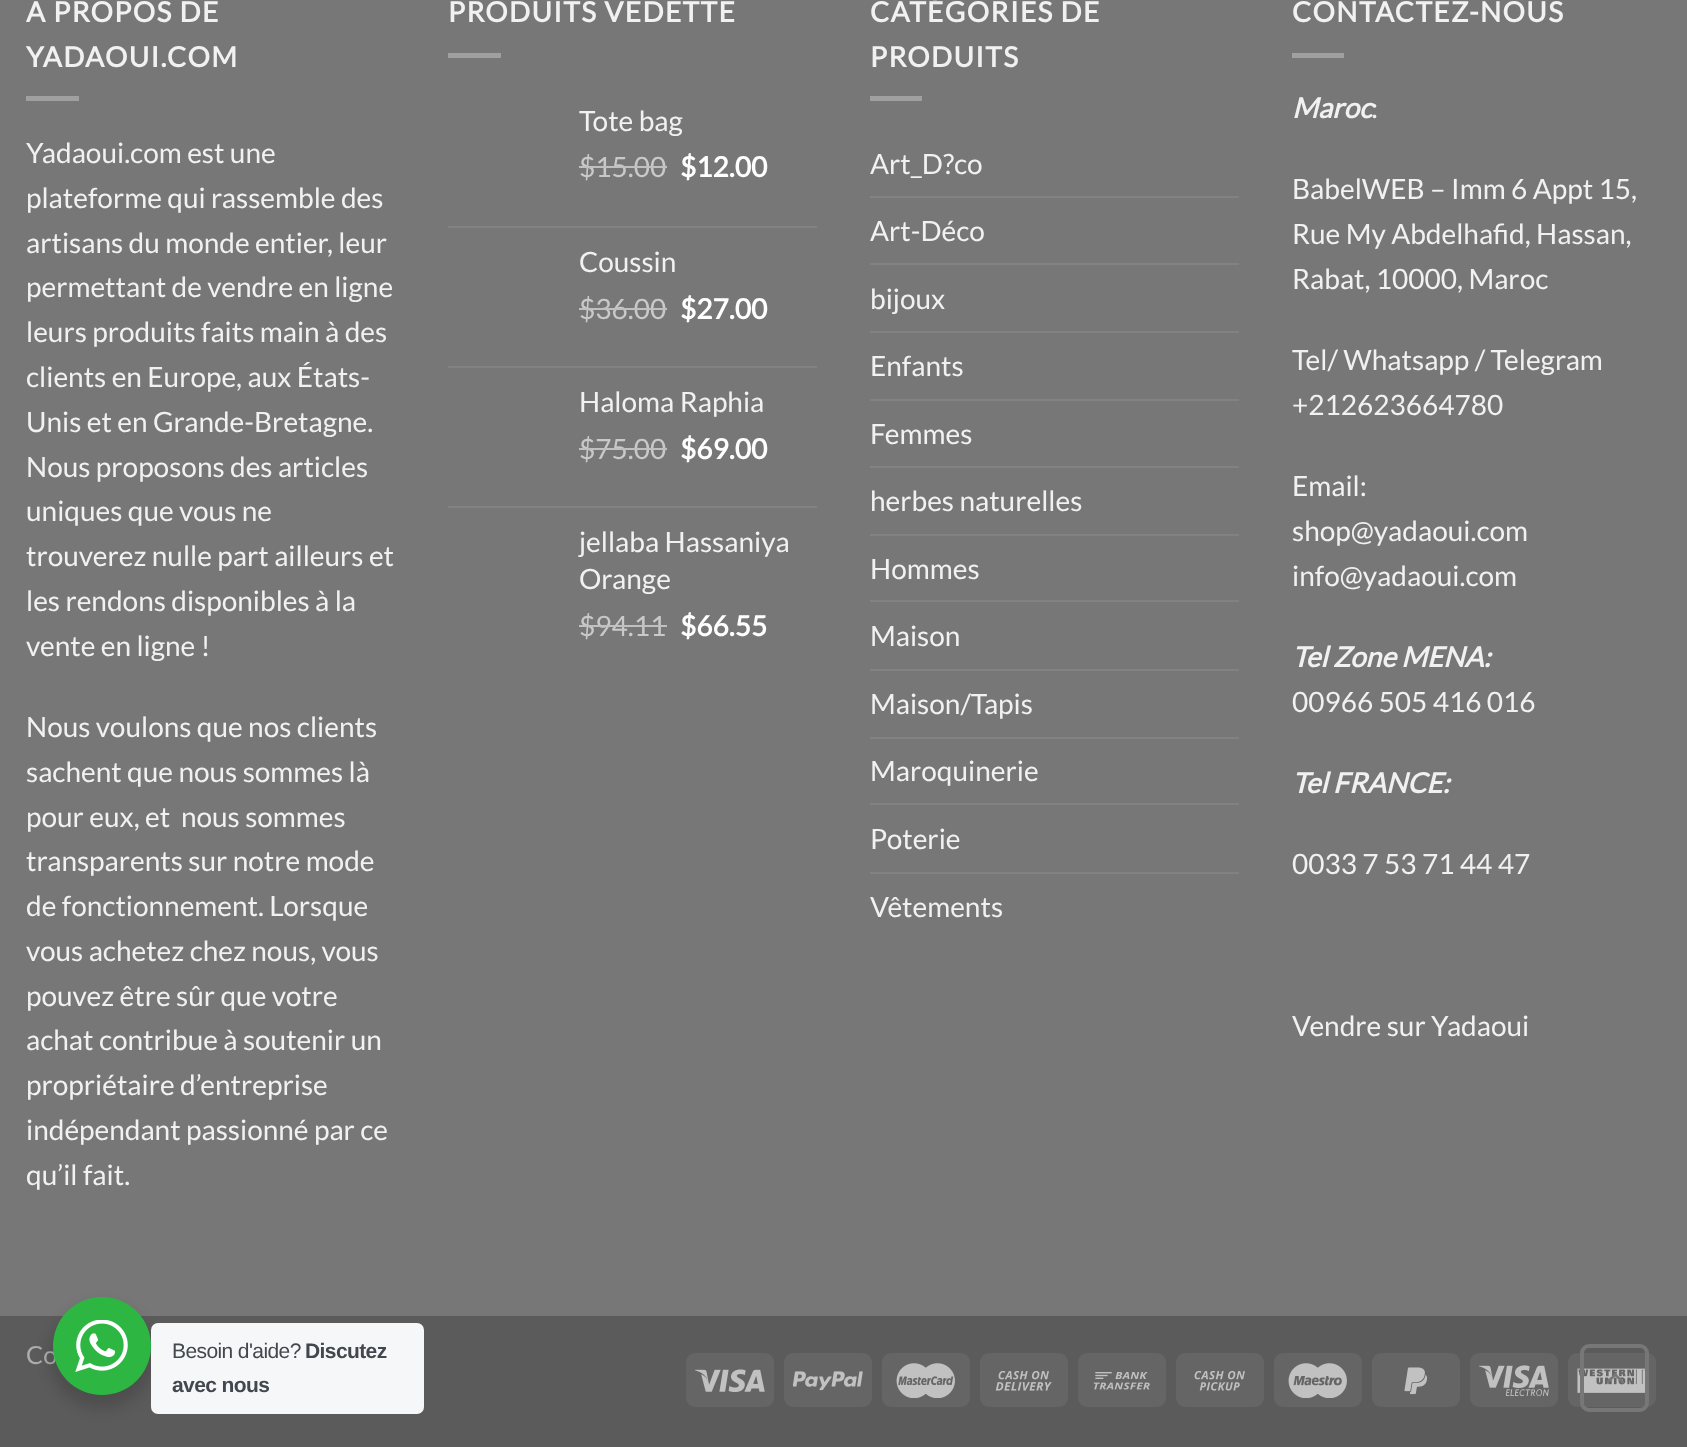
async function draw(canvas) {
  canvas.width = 1687
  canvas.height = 1447
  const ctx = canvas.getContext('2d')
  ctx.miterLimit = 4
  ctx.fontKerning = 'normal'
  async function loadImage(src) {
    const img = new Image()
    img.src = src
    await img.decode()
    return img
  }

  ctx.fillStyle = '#777'
  ctx.fillRect(0, 0, 1687, 1447)
  ctx.letterSpacing = '1.4px'
  ctx.font = 'bold 28px Lato'
  ctx.fillStyle = '#f1f1f1'
  ctx.fillText('A PROPOS DE', 26, 22)
  ctx.fillText('YADAOUI.COM', 26, 67)
  ctx.fillStyle = '#a0a0a0'
  ctx.fillRect(26, 96, 53, 5)
  ctx.letterSpacing = '0px'
  ctx.font = '28px Lato'
  ctx.fillStyle = '#f1f1f1'
  ctx.fillText('Yadaoui.com est une', 26, 163)
  ctx.fillText('plateforme qui rassemble des', 26, 208)
  ctx.fillText('artisans du monde entier, leur', 26, 253)
  ctx.fillText('permettant de vendre en ligne', 26, 297)
  ctx.fillText('leurs produits faits main à des', 26, 342)
  ctx.fillText('clients en Europe, aux États-', 26, 387)
  ctx.fillText('Unis et en Grande-Bretagne.', 26, 432)
  ctx.fillText('Nous proposons des articles', 26, 477)
  ctx.fillText('uniques que vous ne', 26, 521)
  ctx.fillText('trouverez nulle part ailleurs et', 26, 566)
  ctx.fillText('les rendons disponibles à la', 26, 611)
  ctx.fillText('vente en ligne !', 26, 656)
  ctx.fillText('Nous voulons que nos clients', 26, 737)
  ctx.fillText('sachent que nous sommes là', 26, 782)
  ctx.fillText('pour eux, et  nous sommes', 26, 827)
  ctx.fillText('transparents sur notre mode', 26, 871)
  ctx.fillText('de fonctionnement. Lorsque', 26, 916)
  ctx.fillText('vous achetez chez nous, vous', 26, 961)
  ctx.fillText('pouvez être sûr que votre', 26, 1006)
  ctx.fillText('achat contribue à soutenir un', 26, 1050)
  ctx.fillText('propriétaire d’entreprise', 26, 1095)
  ctx.fillText('indépendant passionné par ce', 26, 1140)
  ctx.fillText('qu’il fait.', 26, 1185)
  ctx.letterSpacing = '1.4px'
  ctx.font = 'bold 28px Lato'
  ctx.fillText('PRODUITS VEDETTE', 448, 22)
  ctx.fillStyle = '#a0a0a0'
  ctx.fillRect(448, 53, 53, 5)
  ctx.letterSpacing = '0px'
  ctx.font = '28px Lato'
  ctx.fillStyle = '#f1f1f1'
  ctx.fillText('Tote bag', 579, 131)
  ctx.fillStyle = '#c9c9c9'
  ctx.fillText('$15.00', 579, 177)
  ctx.fillStyle = '#c0c0c0'
  ctx.fillRect(579, 166, 88, 2)
  ctx.font = 'bold 28px Lato'
  ctx.fillStyle = '#fff'
  ctx.fillText('$12.00', 680, 177)
  ctx.fillStyle = '#828282'
  ctx.fillRect(448, 226, 369, 2)
  ctx.font = '28px Lato'
  ctx.fillStyle = '#f1f1f1'
  ctx.fillText('Coussin', 579, 272)
  ctx.fillStyle = '#c9c9c9'
  ctx.fillText('$36.00', 579, 319)
  ctx.fillStyle = '#c0c0c0'
  ctx.fillRect(579, 308, 88, 2)
  ctx.font = 'bold 28px Lato'
  ctx.fillStyle = '#fff'
  ctx.fillText('$27.00', 680, 319)
  ctx.fillStyle = '#828282'
  ctx.fillRect(448, 366, 369, 2)
  ctx.font = '28px Lato'
  ctx.fillStyle = '#f1f1f1'
  ctx.fillText('Haloma Raphia', 579, 412)
  ctx.fillStyle = '#c9c9c9'
  ctx.fillText('$75.00', 579, 459)
  ctx.fillStyle = '#c0c0c0'
  ctx.fillRect(579, 448, 88, 2)
  ctx.font = 'bold 28px Lato'
  ctx.fillStyle = '#fff'
  ctx.fillText('$69.00', 680, 459)
  ctx.fillStyle = '#828282'
  ctx.fillRect(448, 506, 369, 2)
  ctx.font = '28px Lato'
  ctx.fillStyle = '#f1f1f1'
  ctx.fillText('jellaba Hassaniya', 579, 552)
  ctx.fillText('Orange', 579, 589)
  ctx.fillStyle = '#c9c9c9'
  ctx.fillText('$94.11', 579, 636)
  ctx.fillStyle = '#c0c0c0'
  ctx.fillRect(579, 625, 88, 2)
  ctx.font = 'bold 28px Lato'
  ctx.fillStyle = '#fff'
  ctx.fillText('$66.55', 680, 636)
  ctx.letterSpacing = '1.4px'
  ctx.fillStyle = '#f1f1f1'
  ctx.fillText('CATÉGORIES DE', 870, 22)
  ctx.fillText('PRODUITS', 870, 67)
  ctx.fillStyle = '#a0a0a0'
  ctx.fillRect(870, 96, 52, 5)
  ctx.letterSpacing = '0px'
  ctx.font = '28px Lato'
  ctx.fillStyle = '#f1f1f1'
  ctx.fillText('Art_D?co', 870, 174)
  ctx.fillStyle = '#828282'
  ctx.fillRect(870, 196, 369, 2)
  ctx.fillStyle = '#f1f1f1'
  ctx.fillText('Art-Déco', 870, 241)
  ctx.fillStyle = '#828282'
  ctx.fillRect(870, 263, 369, 2)
  ctx.fillStyle = '#f1f1f1'
  ctx.fillText('bijoux', 870, 309)
  ctx.fillStyle = '#828282'
  ctx.fillRect(870, 331, 369, 2)
  ctx.fillStyle = '#f1f1f1'
  ctx.fillText('Enfants', 870, 376)
  ctx.fillStyle = '#828282'
  ctx.fillRect(870, 399, 369, 2)
  ctx.fillStyle = '#f1f1f1'
  ctx.fillText('Femmes', 870, 444)
  ctx.fillStyle = '#828282'
  ctx.fillRect(870, 466, 369, 2)
  ctx.fillStyle = '#f1f1f1'
  ctx.fillText('herbes naturelles', 870, 511)
  ctx.fillStyle = '#828282'
  ctx.fillRect(870, 534, 369, 2)
  ctx.fillStyle = '#f1f1f1'
  ctx.fillText('Hommes', 870, 579)
  ctx.fillStyle = '#828282'
  ctx.fillRect(870, 600, 369, 2)
  ctx.fillStyle = '#f1f1f1'
  ctx.fillText('Maison', 870, 646)
  ctx.fillStyle = '#828282'
  ctx.fillRect(870, 669, 369, 2)
  ctx.fillStyle = '#f1f1f1'
  ctx.fillText('Maison/Tapis', 870, 714)
  ctx.fillStyle = '#828282'
  ctx.fillRect(870, 737, 369, 2)
  ctx.fillStyle = '#f1f1f1'
  ctx.fillText('Maroquinerie', 870, 781)
  ctx.fillStyle = '#828282'
  ctx.fillRect(870, 803, 369, 2)
  ctx.fillStyle = '#f1f1f1'
  ctx.fillText('Poterie', 870, 849)
  ctx.fillStyle = '#828282'
  ctx.fillRect(870, 872, 369, 2)
  ctx.fillStyle = '#f1f1f1'
  ctx.fillText('Vêtements', 870, 917)
  ctx.letterSpacing = '1.4px'
  ctx.font = 'bold 28px Lato'
  ctx.fillText('CONTACTEZ-NOUS', 1292, 22)
  ctx.fillStyle = '#a0a0a0'
  ctx.fillRect(1292, 53, 52, 5)
  ctx.letterSpacing = '0px'
  ctx.font = 'italic bold 28px Lato'
  ctx.fillStyle = '#f1f1f1'
  ctx.fillText('Maroc', 1292, 118)
  ctx.font = '28px Lato'
  ctx.fillText(':', 1371, 118)
  ctx.fillText('BabelWEB – Imm 6 Appt 15,', 1292, 199)
  ctx.fillText('Rue My Abdelhafid, Hassan,', 1292, 244)
  ctx.fillText('Rabat, 10000, Maroc', 1292, 289)
  ctx.fillText('Tel/ Whatsapp / Telegram', 1292, 370)
  ctx.fillText('+212623664780', 1292, 415)
  ctx.fillText('Email:', 1292, 496)
  ctx.fillText('shop@yadaoui.com', 1292, 541)
  ctx.fillText('info@yadaoui.com', 1292, 586)
  ctx.font = 'italic bold 28px Lato'
  ctx.fillText('Tel Zone MENA:', 1292, 667)
  ctx.font = '28px Lato'
  ctx.fillText('00966 505 416 016', 1292, 712)
  ctx.font = 'italic bold 28px Lato'
  ctx.fillText('Tel FRANCE:', 1292, 793)
  ctx.font = '28px Lato'
  ctx.fillText('0033 7 53 71 44 47', 1292, 874)
  ctx.fillText('Vendre sur Yadaoui', 1292, 1036)
  ctx.fillStyle = '#5b5b5b'
  ctx.fillRect(0, 1316, 1687, 131)
  ctx.font = '25px Lato'
  ctx.fillStyle = '#adadad'
  ctx.fillText('Co', 26, 1364)
  ctx.fillStyle = '#656565'
  ctx.beginPath()
  ctx.roundRect(686, 1353, 88, 54, 9)
  ctx.fill()
  ctx.drawImage(await loadImage('image0.png'), 695, 1369, 70, 23)
  ctx.beginPath()
  ctx.roundRect(784, 1353, 88, 54, 9)
  ctx.fill()
  ctx.drawImage(await loadImage('image1.png'), 793, 1371, 70, 20)
  ctx.beginPath()
  ctx.roundRect(882, 1353, 88, 54, 9)
  ctx.fill()
  ctx.drawImage(await loadImage('image2.png'), 896, 1363, 59, 35)
  ctx.beginPath()
  ctx.roundRect(980, 1353, 88, 54, 9)
  ctx.fill()
  ctx.drawImage(await loadImage('image3.png'), 995, 1371, 57, 20)
  ctx.beginPath()
  ctx.roundRect(1078, 1353, 88, 54, 9)
  ctx.fill()
  ctx.drawImage(await loadImage('image4.png'), 1093, 1372, 57, 18)
  ctx.beginPath()
  ctx.roundRect(1176, 1353, 88, 54, 9)
  ctx.fill()
  ctx.drawImage(await loadImage('image5.png'), 1194, 1371, 51, 20)
  ctx.beginPath()
  ctx.roundRect(1274, 1353, 88, 54, 9)
  ctx.fill()
  ctx.drawImage(await loadImage('image6.png'), 1288, 1363, 59, 35)
  ctx.beginPath()
  ctx.roundRect(1372, 1353, 88, 54, 9)
  ctx.fill()
  ctx.drawImage(await loadImage('image7.png'), 1404, 1367, 23, 28)
  ctx.beginPath()
  ctx.roundRect(1470, 1353, 88, 54, 9)
  ctx.fill()
  ctx.drawImage(await loadImage('image8.png'), 1479, 1365, 70, 32)
  ctx.beginPath()
  ctx.roundRect(1568, 1353, 88, 54, 9)
  ctx.fill()
  ctx.drawImage(await loadImage('image9.png'), 1577, 1368, 68, 25)
  ctx.beginPath()
  ctx.roundRect(1582, 1346, 65, 64, 7)
  ctx.strokeStyle = '#777'
  ctx.lineWidth = 4
  ctx.stroke()
  ctx.drawImage(await loadImage('image10.png'), 1606, 1373, 18, 11)
  ctx.fillStyle = '#00000024'
  ctx.filter = 'blur(7px)'
  ctx.beginPath()
  ctx.roundRect(49, 1304, 105, 105, 52.5)
  ctx.fill()
  ctx.filter = 'none'
  ctx.fillStyle = '#2db742'
  ctx.beginPath()
  ctx.arc(102, 1346, 49, 0, 2 * Math.PI)
  ctx.fill()
  ctx.drawImage(await loadImage('image11.png'), 75, 1320, 53, 52)
  ctx.fillStyle = '#f5f7f9'
  ctx.beginPath()
  ctx.roundRect(151, 1323, 273, 91, 7)
  ctx.fill()
  ctx.letterSpacing = '-0.6px'
  ctx.font = '21px Liberation Sans'
  ctx.fillStyle = '#43474e'
  ctx.fillText('Besoin d\'aide?', 172, 1358)
  ctx.font = 'bold 21px Liberation Sans'
  ctx.fillText('Discutez', 305, 1358)
  ctx.fillText('avec nous', 172, 1392)
}

draw(document.querySelector('canvas'))
